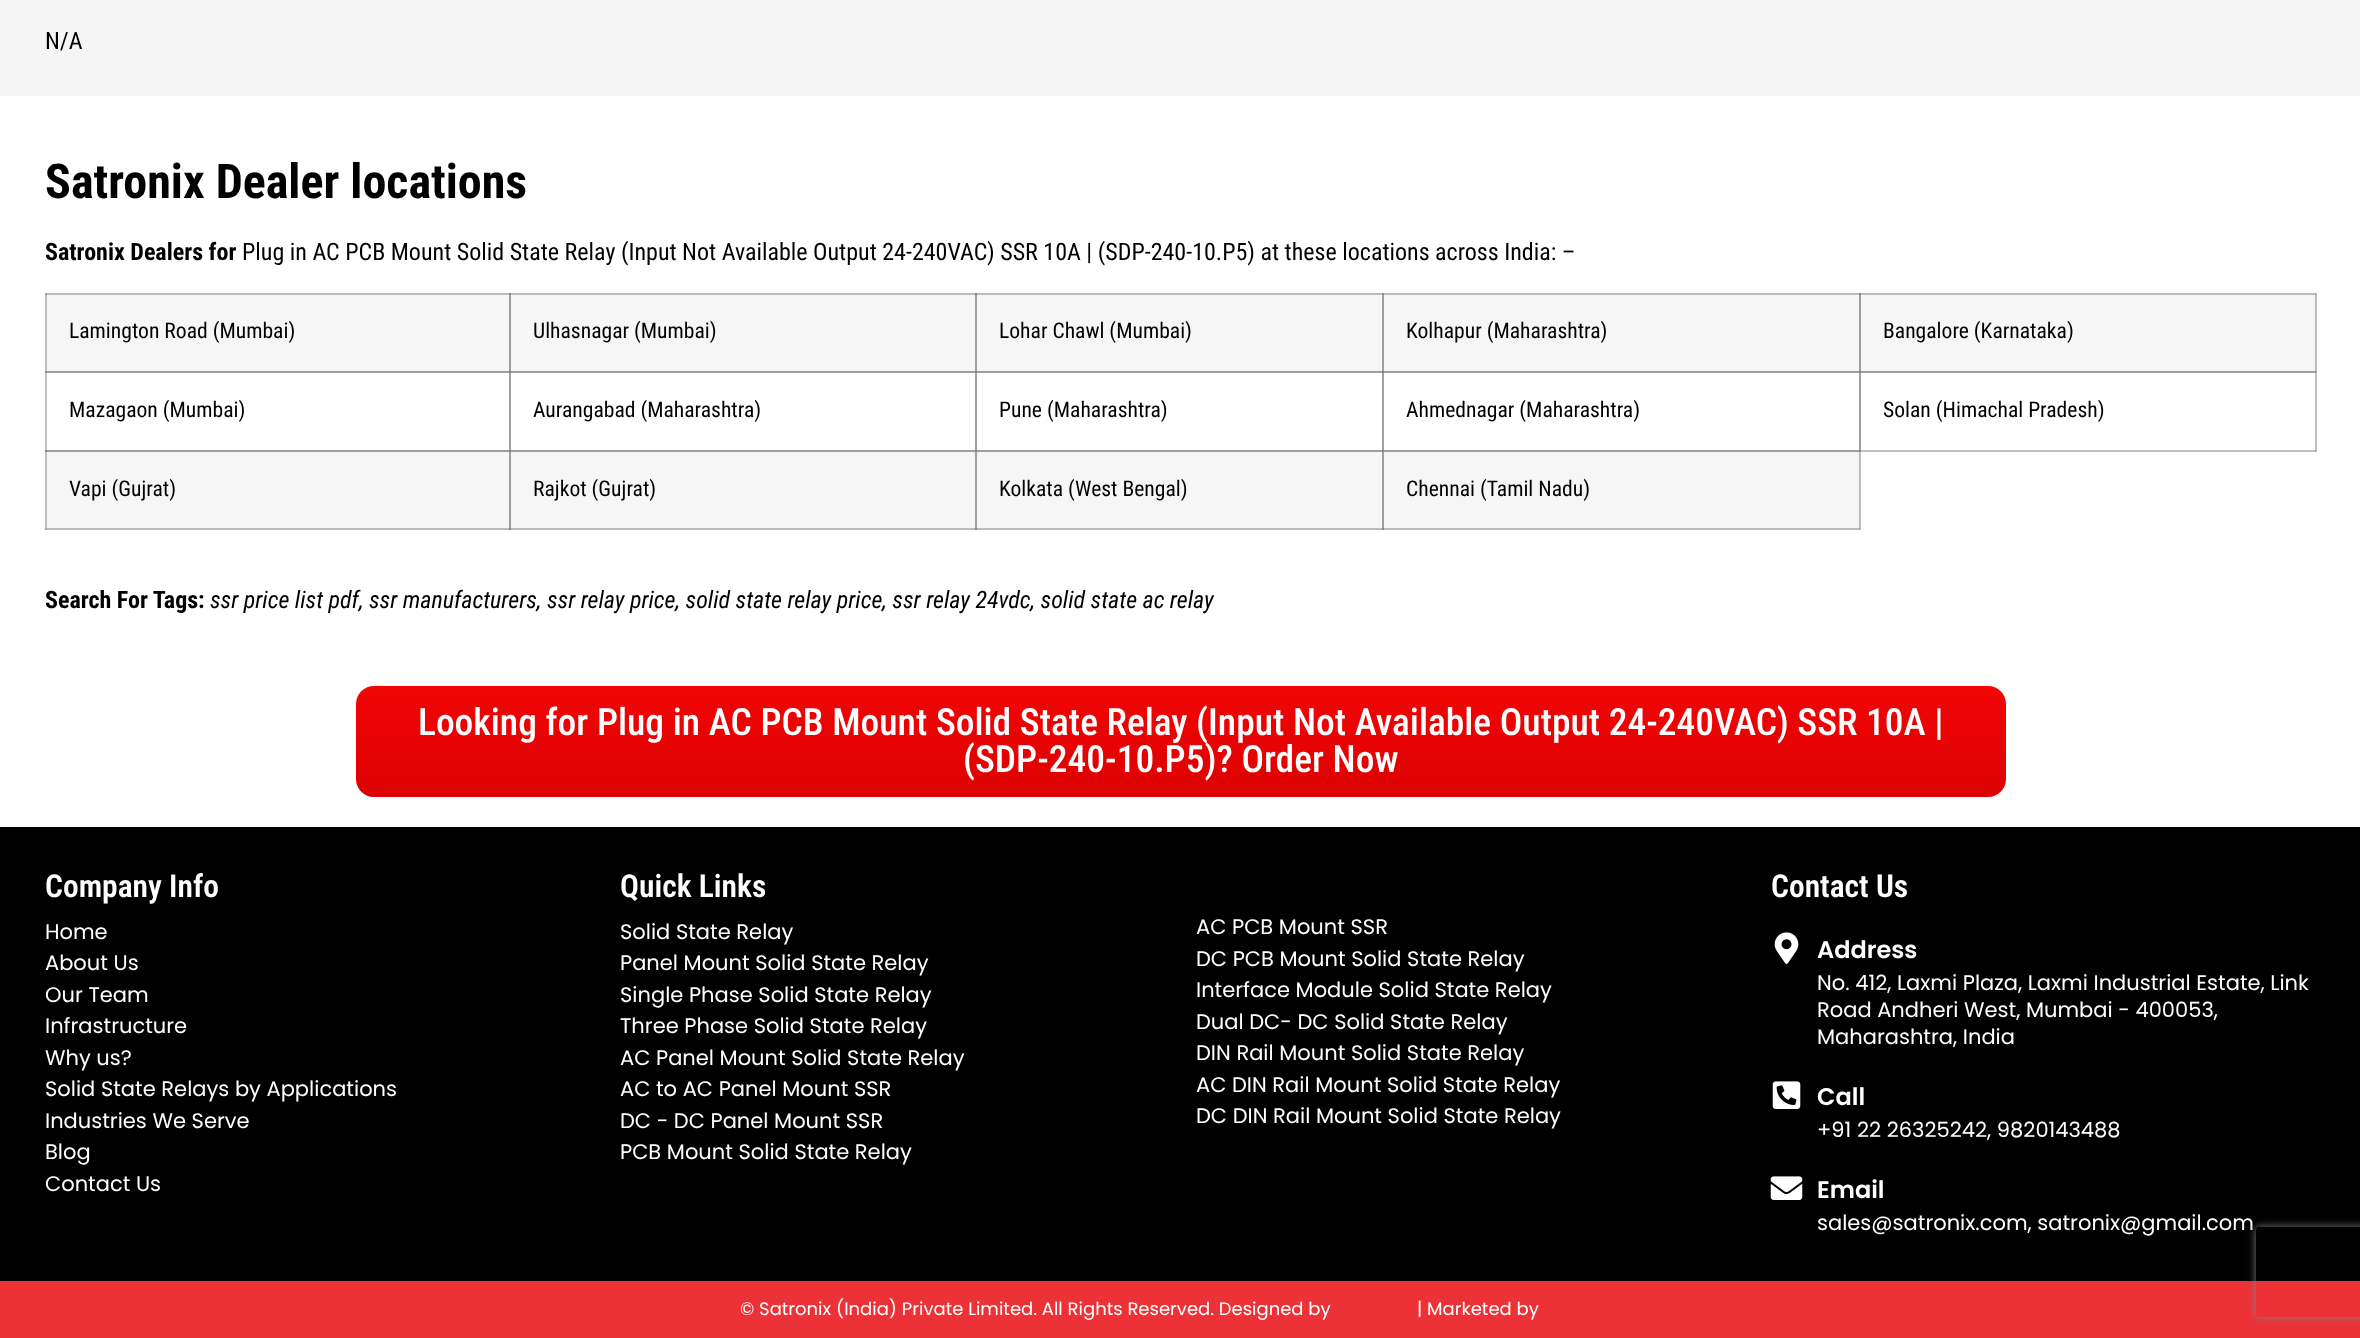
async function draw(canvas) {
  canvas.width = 2360
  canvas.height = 1338
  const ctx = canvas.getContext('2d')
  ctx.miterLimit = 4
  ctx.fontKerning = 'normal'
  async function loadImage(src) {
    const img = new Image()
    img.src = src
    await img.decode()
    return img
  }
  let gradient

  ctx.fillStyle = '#fff'
  ctx.fillRect(0, 0, 2360, 1338)
  ctx.fillStyle = '#c0c0c0'
  ctx.fillRect(45, 293, 2, 237)
  ctx.fillStyle = '#a0a0a0'
  ctx.fillRect(45, 293, 2, 2)
  ctx.fillStyle = '#c0c0c0'
  ctx.fillRect(2316, 293, 1, 79)
  ctx.fillStyle = '#a0a0a0'
  ctx.fillRect(45, 372, 465, 1)
  ctx.fillStyle = '#909090'
  ctx.fillRect(45, 372, 2, 1)
  ctx.fillStyle = '#888'
  ctx.fillRect(45, 371, 2, 1)
  ctx.fillStyle = '#a0a0a0'
  ctx.fillRect(509, 371, 2, 81)
  ctx.fillRect(509, 372, 468, 1)
  ctx.fillStyle = '#888'
  ctx.fillRect(509, 372, 2, 1)
  ctx.fillStyle = '#828282'
  ctx.fillRect(509, 371, 1, 2)
  ctx.fillStyle = '#a0a0a0'
  ctx.fillRect(975, 371, 2, 81)
  ctx.fillRect(975, 372, 408, 1)
  ctx.fillStyle = '#828282'
  ctx.fillRect(975, 372, 2, 1)
  ctx.fillStyle = '#a0a0a0'
  ctx.fillRect(1382, 371, 2, 81)
  ctx.fillRect(1382, 372, 478, 1)
  ctx.fillStyle = '#888'
  ctx.fillRect(1382, 372, 2, 1)
  ctx.fillStyle = '#828282'
  ctx.fillRect(1382, 371, 1, 2)
  ctx.fillStyle = '#a0a0a0'
  ctx.fillRect(1859, 371, 2, 81)
  ctx.fillStyle = '#c0c0c0'
  ctx.fillRect(1859, 450, 457, 2)
  ctx.fillRect(2315, 371, 2, 81)
  ctx.fillStyle = '#a0a0a0'
  ctx.fillRect(2315, 371, 2, 1)
  ctx.fillRect(2315, 450, 1, 2)
  ctx.fillRect(1859, 372, 457, 1)
  ctx.fillStyle = '#888'
  ctx.fillRect(1859, 372, 2, 1)
  ctx.fillStyle = '#828282'
  ctx.fillRect(1859, 371, 1, 2)
  ctx.fillStyle = '#909090'
  ctx.fillRect(2315, 371, 1, 2)
  ctx.fillStyle = '#a0a0a0'
  ctx.fillRect(45, 528, 2, 2)
  ctx.fillStyle = '#888'
  ctx.fillRect(45, 450, 2, 2)
  ctx.fillStyle = '#c0c0c0'
  ctx.fillRect(1860, 450, 1, 80)
  ctx.fillStyle = '#888'
  ctx.fillRect(1859, 450, 2, 2)
  ctx.fillStyle = '#f5f5f5'
  ctx.fillRect(0, 0, 2360, 96)
  ctx.font = '24px Roboto Condensed'
  ctx.fillStyle = '#000'
  ctx.fillText('N/A', 45, 49)
  ctx.font = 'bold 48px Roboto Condensed'
  ctx.fillText('Satronix Dealer locations', 45, 198)
  ctx.font = 'bold 24px Roboto Condensed'
  ctx.fillText('Satronix Dealers for', 45, 260)
  ctx.font = '24px Roboto Condensed'
  ctx.fillText('Plug in AC PCB Mount Solid State Relay (Input Not Available Output 24-240VAC) SSR 10A | (SDP-240-10.P5) at these locations across India: –', 242, 260)
  ctx.fillStyle = '#f6f6f6'
  ctx.fillRect(47, 295, 462, 76)
  ctx.fillStyle = '#bbb'
  ctx.fillRect(47, 293, 463, 2)
  ctx.fillStyle = '#9e9e9e'
  ctx.fillRect(509, 293, 2, 79)
  ctx.fillStyle = '#888'
  ctx.fillRect(509, 293, 1, 2)
  ctx.fillStyle = '#9e9e9e'
  ctx.fillRect(47, 371, 463, 1)
  ctx.fillStyle = '#818181'
  ctx.fillRect(509, 371, 1, 1)
  ctx.font = '21.6px Roboto Condensed'
  ctx.fillStyle = '#000'
  ctx.fillText('Lamington Road (Mumbai)', 69, 338)
  ctx.fillStyle = '#f6f6f6'
  ctx.fillRect(511, 295, 464, 76)
  ctx.fillStyle = '#bbb'
  ctx.fillRect(510, 293, 873, 2)
  ctx.fillStyle = '#8f8f8f'
  ctx.fillRect(510, 293, 1, 2)
  ctx.fillStyle = '#9e9e9e'
  ctx.fillRect(975, 293, 2, 79)
  ctx.fillStyle = '#888'
  ctx.fillRect(975, 293, 2, 2)
  ctx.fillStyle = '#9e9e9e'
  ctx.fillRect(510, 371, 467, 1)
  ctx.fillStyle = '#828282'
  ctx.fillRect(510, 371, 1, 1)
  ctx.fillStyle = '#818181'
  ctx.fillRect(975, 371, 2, 1)
  ctx.fillStyle = '#000'
  ctx.fillText('Ulhasnagar (Mumbai)', 533, 338)
  ctx.fillStyle = '#f6f6f6'
  ctx.fillRect(977, 295, 405, 76)
  ctx.fillStyle = '#9e9e9e'
  ctx.fillRect(1382, 293, 2, 79)
  ctx.fillStyle = '#888'
  ctx.fillRect(1382, 293, 1, 2)
  ctx.fillStyle = '#9e9e9e'
  ctx.fillRect(977, 371, 406, 1)
  ctx.fillStyle = '#818181'
  ctx.fillRect(1382, 371, 1, 1)
  ctx.fillStyle = '#000'
  ctx.fillText('Lohar Chawl (Mumbai)', 999, 338)
  ctx.fillStyle = '#f6f6f6'
  ctx.fillRect(1384, 295, 475, 76)
  ctx.fillStyle = '#bbb'
  ctx.fillRect(1383, 293, 477, 2)
  ctx.fillStyle = '#8f8f8f'
  ctx.fillRect(1383, 293, 1, 2)
  ctx.fillStyle = '#9e9e9e'
  ctx.fillRect(1859, 293, 2, 79)
  ctx.fillRect(1383, 371, 477, 1)
  ctx.fillStyle = '#828282'
  ctx.fillRect(1383, 371, 1, 1)
  ctx.fillStyle = '#818181'
  ctx.fillRect(1859, 371, 1, 1)
  ctx.fillStyle = '#000'
  ctx.fillText('Kolhapur (Maharashtra)', 1406, 338)
  ctx.fillStyle = '#f6f6f6'
  ctx.fillRect(1861, 295, 454, 76)
  ctx.fillStyle = '#bbb'
  ctx.fillRect(2315, 293, 1, 79)
  ctx.fillStyle = '#9e9e9e'
  ctx.fillRect(1860, 371, 456, 1)
  ctx.fillStyle = '#828282'
  ctx.fillRect(1860, 371, 1, 1)
  ctx.fillStyle = '#888'
  ctx.fillRect(2315, 371, 1, 1)
  ctx.fillStyle = '#bbb'
  ctx.fillRect(1859, 293, 457, 2)
  ctx.fillStyle = '#8f8f8f'
  ctx.fillRect(1859, 293, 2, 2)
  ctx.fillStyle = '#888'
  ctx.fillRect(1859, 293, 1, 2)
  ctx.fillStyle = '#9e9e9e'
  ctx.fillRect(2315, 293, 1, 2)
  ctx.fillStyle = '#000'
  ctx.fillText('Bangalore (Karnataka)', 1883, 338)
  ctx.fillText('Mazagaon (Mumbai)', 69, 417)
  ctx.fillText('Aurangabad (Maharashtra)', 533, 417)
  ctx.fillText('Pune (Maharashtra)', 999, 417)
  ctx.fillText('Ahmednagar (Maharashtra)', 1406, 417)
  ctx.fillText('Solan (Himachal Pradesh)', 1883, 417)
  ctx.fillStyle = '#f6f6f6'
  ctx.fillRect(47, 452, 462, 76)
  ctx.fillStyle = '#bbb'
  ctx.fillRect(47, 528, 463, 2)
  ctx.fillStyle = '#9e9e9e'
  ctx.fillRect(47, 450, 463, 2)
  ctx.fillRect(509, 450, 2, 80)
  ctx.fillStyle = '#888'
  ctx.fillRect(509, 528, 1, 2)
  ctx.fillStyle = '#818181'
  ctx.fillRect(509, 450, 1, 2)
  ctx.fillStyle = '#000'
  ctx.fillText('Vapi (Gujrat)', 69, 496)
  ctx.fillStyle = '#f6f6f6'
  ctx.fillRect(511, 452, 464, 76)
  ctx.fillStyle = '#bbb'
  ctx.fillRect(510, 528, 873, 2)
  ctx.fillStyle = '#8f8f8f'
  ctx.fillRect(510, 528, 1, 2)
  ctx.fillStyle = '#9e9e9e'
  ctx.fillRect(510, 450, 873, 2)
  ctx.fillStyle = '#828282'
  ctx.fillRect(510, 450, 1, 2)
  ctx.fillStyle = '#9e9e9e'
  ctx.fillRect(975, 450, 2, 80)
  ctx.fillStyle = '#888'
  ctx.fillRect(975, 528, 2, 2)
  ctx.fillStyle = '#818181'
  ctx.fillRect(975, 450, 2, 2)
  ctx.fillStyle = '#000'
  ctx.fillText('Rajkot (Gujrat)', 533, 496)
  ctx.fillStyle = '#f6f6f6'
  ctx.fillRect(977, 452, 405, 76)
  ctx.fillStyle = '#9e9e9e'
  ctx.fillRect(1382, 450, 2, 80)
  ctx.fillStyle = '#888'
  ctx.fillRect(1382, 528, 1, 2)
  ctx.fillStyle = '#000'
  ctx.fillText('Kolkata (West Bengal)', 999, 496)
  ctx.fillStyle = '#f6f6f6'
  ctx.fillRect(1384, 452, 475, 76)
  ctx.fillStyle = '#bbb'
  ctx.fillRect(1383, 528, 477, 2)
  ctx.fillStyle = '#8f8f8f'
  ctx.fillRect(1383, 528, 1, 2)
  ctx.fillStyle = '#bbb'
  ctx.fillRect(1859, 450, 1, 80)
  ctx.fillStyle = '#9e9e9e'
  ctx.fillRect(1859, 528, 1, 2)
  ctx.fillRect(1382, 450, 478, 2)
  ctx.fillStyle = '#828282'
  ctx.fillRect(1382, 450, 2, 2)
  ctx.fillRect(1859, 450, 1, 2)
  ctx.fillStyle = '#000'
  ctx.fillText('Chennai (Tamil Nadu)', 1406, 496)
  ctx.font = 'bold 24px Roboto Condensed'
  ctx.fillText('Search For Tags:', 45, 608)
  ctx.font = 'italic 24px Roboto Condensed'
  ctx.fillText('ssr price list pdf, ssr manufacturers, ssr relay price, solid state relay price, ssr relay 24vdc, solid state ac relay', 210, 608)
  gradient = ctx.createLinearGradient(1181, 685, 1181, 797)
  gradient.addColorStop(0, '#f20505')
  gradient.addColorStop(1, '#dc0202')
  ctx.fillStyle = gradient
  ctx.beginPath()
  ctx.roundRect(356, 686, 1650, 111, 18)
  ctx.fill()
  ctx.font = '500 37.5px Roboto Condensed'
  ctx.fillStyle = '#fff'
  ctx.fillText('Looking for Plug in AC PCB Mount Solid State Relay (Input Not Available Output 24-240VAC) SSR 10A |', 418, 735)
  ctx.fillText('(SDP-240-10.P5)? Order Now', 963, 772)
  ctx.fillStyle = '#000'
  ctx.fillRect(0, 827, 2360, 454)
  ctx.font = '600 31.5px Roboto Condensed'
  ctx.fillStyle = '#fff'
  ctx.fillText('Company Info', 45, 897)
  ctx.font = '21px Poppins'
  ctx.fillText('Home', 45, 939)
  ctx.fillText('About Us', 45, 970)
  ctx.fillText('Our Team', 45, 1002)
  ctx.fillText('Infrastructure', 45, 1033)
  ctx.fillText('Why us?', 45, 1065)
  ctx.fillText('Solid State Relays by Applications', 45, 1096)
  ctx.fillText('Industries We Serve', 45, 1128)
  ctx.fillText('Blog', 45, 1159)
  ctx.fillText('Contact Us', 45, 1191)
  ctx.font = '600 31.5px Roboto Condensed'
  ctx.fillText('Quick Links', 620, 897)
  ctx.font = '21px Poppins'
  ctx.fillText('Solid State Relay', 620, 939)
  ctx.fillText('Panel Mount Solid State Relay', 620, 970)
  ctx.fillText('Single Phase Solid State Relay', 620, 1002)
  ctx.fillText('Three Phase Solid State Relay', 620, 1033)
  ctx.fillText('AC Panel Mount Solid State Relay', 620, 1065)
  ctx.fillText('AC to AC Panel Mount SSR', 620, 1096)
  ctx.fillText('DC - DC Panel Mount SSR', 620, 1128)
  ctx.fillText('PCB Mount Solid State Relay', 620, 1159)
  ctx.fillText('AC PCB Mount SSR', 1196, 934)
  ctx.fillText('DC PCB Mount Solid State Relay', 1196, 966)
  ctx.fillText('Interface Module Solid State Relay', 1196, 997)
  ctx.fillText('Dual DC- DC Solid State Relay', 1196, 1029)
  ctx.fillText('DIN Rail Mount Solid State Relay', 1196, 1060)
  ctx.fillText('AC DIN Rail Mount Solid State Relay', 1196, 1092)
  ctx.fillText('DC DIN Rail Mount Solid State Relay', 1196, 1123)
  ctx.font = '600 31.5px Roboto Condensed'
  ctx.fillText('Contact Us', 1771, 897)
  ctx.drawImage(await loadImage('image0.png'), 1774, 932, 25, 32)
  ctx.font = '600 24px Poppins'
  ctx.fillText('Address', 1817, 958)
  ctx.font = '21px Poppins'
  ctx.fillText('No. 412, Laxmi Plaza, Laxmi Industrial Estate, Link', 1817, 990)
  ctx.fillText('Road Andheri West, Mumbai - 400053,', 1817, 1017)
  ctx.fillText('Maharashtra, India', 1817, 1044)
  ctx.drawImage(await loadImage('image1.png'), 1772, 1081, 29, 28)
  ctx.font = '600 24px Poppins'
  ctx.fillText('Call', 1817, 1105)
  ctx.font = '21px Poppins'
  ctx.fillText('+91 22 26325242, 9820143488', 1817, 1137)
  ctx.drawImage(await loadImage('image2.png'), 1770, 1176, 33, 24)
  ctx.font = '600 24px Poppins'
  ctx.fillText('Email', 1817, 1198)
  ctx.font = '21px Poppins'
  ctx.fillText('sales@satronix.com, satronix@gmail.com', 1817, 1230)
  ctx.fillStyle = '#ed3237'
  ctx.fillRect(0, 1281, 2360, 57)
  ctx.font = '18px Poppins'
  ctx.fillStyle = '#fff'
  ctx.fillText('© Satronix (India) Private Limited. All Rights Reserved. Designed by', 740, 1315)
  ctx.fillText('| Marketed by', 1417, 1315)
  ctx.save()
  ctx.beginPath()
  ctx.moveTo(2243, 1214)
  ctx.lineTo(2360, 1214)
  ctx.lineTo(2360, 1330)
  ctx.lineTo(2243, 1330)
  ctx.closePath()
  ctx.moveTo(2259, 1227)
  ctx.lineTo(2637, 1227)
  ctx.bezierCurveTo(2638.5, 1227, 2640, 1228.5, 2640, 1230)
  ctx.lineTo(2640, 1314)
  ctx.bezierCurveTo(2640, 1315.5, 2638.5, 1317, 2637, 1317)
  ctx.lineTo(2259, 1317)
  ctx.bezierCurveTo(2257.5, 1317, 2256, 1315.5, 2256, 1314)
  ctx.lineTo(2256, 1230)
  ctx.bezierCurveTo(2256, 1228.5, 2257.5, 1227, 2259, 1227)
  ctx.closePath()
  ctx.clip('evenodd')
  ctx.fillStyle = '#808080'
  ctx.filter = 'blur(4px)'
  ctx.beginPath()
  ctx.roundRect(2256, 1227, 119, 90, 3)
  ctx.fill()
  ctx.filter = 'none'
  ctx.restore()
}

draw(document.querySelector('canvas'))
